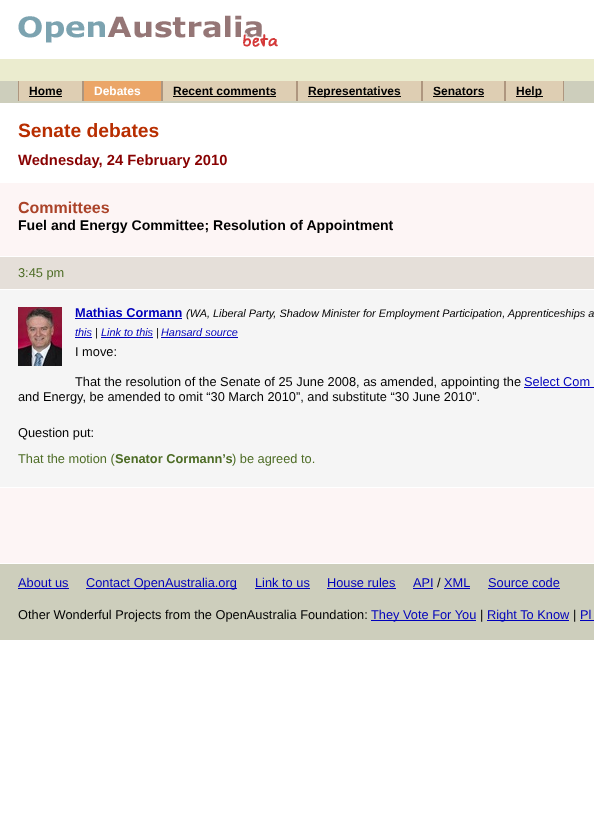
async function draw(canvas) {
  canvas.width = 594
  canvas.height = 819
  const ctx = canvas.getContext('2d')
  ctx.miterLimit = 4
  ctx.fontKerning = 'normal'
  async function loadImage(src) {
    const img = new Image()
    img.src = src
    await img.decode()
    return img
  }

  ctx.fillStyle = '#fff'
  ctx.fillRect(0, 0, 594, 819)
  ctx.drawImage(await loadImage('image0.png'), 18, 15, 260, 32)
  ctx.fillStyle = '#ebeccf'
  ctx.fillRect(0, 59, 594, 22)
  ctx.fillStyle = '#cdcebc'
  ctx.fillRect(0, 81, 594, 22)
  ctx.fillStyle = '#deceb3'
  ctx.fillRect(19, 81, 63, 20)
  ctx.fillStyle = '#ae967f'
  ctx.fillRect(82, 81, 2, 20)
  ctx.fillRect(18, 81, 1, 20)
  ctx.font = 'bold 12px Liberation Sans'
  ctx.fillStyle = '#000'
  ctx.fillText('Home', 29, 95)
  ctx.fillRect(29, 96, 33, 1)
  ctx.fillStyle = '#eba668'
  ctx.fillRect(84, 81, 77, 20)
  ctx.fillStyle = '#ae967f'
  ctx.fillRect(161, 81, 2, 20)
  ctx.fillStyle = '#fff'
  ctx.fillText('Debates', 94, 95)
  ctx.fillStyle = '#deceb3'
  ctx.fillRect(163, 81, 133, 20)
  ctx.fillStyle = '#ae967f'
  ctx.fillRect(296, 81, 2, 20)
  ctx.fillStyle = '#000'
  ctx.fillText('Recent comments', 173, 95)
  ctx.fillRect(173, 96, 103, 1)
  ctx.fillStyle = '#deceb3'
  ctx.fillRect(298, 81, 123, 20)
  ctx.fillStyle = '#ae967f'
  ctx.fillRect(421, 81, 2, 20)
  ctx.fillStyle = '#000'
  ctx.fillRect(308, 96, 93, 1)
  ctx.fillText('Representatives', 308, 95)
  ctx.fillStyle = '#deceb3'
  ctx.fillRect(423, 81, 81, 20)
  ctx.fillStyle = '#ae967f'
  ctx.fillRect(504, 81, 2, 20)
  ctx.fillStyle = '#000'
  ctx.fillText('Senators', 433, 95)
  ctx.fillRect(433, 96, 51, 1)
  ctx.fillStyle = '#deceb3'
  ctx.fillRect(506, 81, 57, 20)
  ctx.fillStyle = '#ae967f'
  ctx.fillRect(563, 81, 1, 20)
  ctx.fillStyle = '#000'
  ctx.fillRect(516, 96, 27, 1)
  ctx.fillText('Help', 516, 95)
  ctx.font = 'bold 19.25px Liberation Sans'
  ctx.fillStyle = '#b82e00'
  ctx.fillText('Senate debates', 18, 137)
  ctx.font = 'bold 14.75px Liberation Sans'
  ctx.fillStyle = '#880101'
  ctx.fillText('Wednesday, 24 February 2010', 18, 165)
  ctx.fillStyle = '#fdf5f5'
  ctx.fillRect(0, 183, 594, 73)
  ctx.font = 'bold 16px Liberation Sans'
  ctx.fillStyle = '#ab4329'
  ctx.fillText('Committees', 18, 213)
  ctx.font = 'bold 14.1px Liberation Sans'
  ctx.fillStyle = '#000'
  ctx.fillText('Fuel and Energy Committee; Resolution of Appointment', 18, 230)
  ctx.fillStyle = '#e5dfd9'
  ctx.fillRect(0, 257, 594, 32)
  ctx.font = '12.8px Liberation Sans'
  ctx.fillStyle = '#4d6c25'
  ctx.fillText('3:45 pm', 18, 277)
  ctx.fillStyle = '#f5f5f5'
  ctx.fillRect(0, 290, 594, 197)
  ctx.drawImage(await loadImage('image1.png'), 18, 307, 44, 59)
  ctx.font = 'bold 12.8px Liberation Sans'
  ctx.fillStyle = '#00b'
  ctx.fillText('Mathias Cormann', 75, 317)
  ctx.fillRect(75, 318, 107, 1)
  ctx.font = 'italic 10.9px Liberation Sans'
  ctx.fillStyle = '#000'
  ctx.fillText('(WA, Liberal Party, Shadow Minister for Employment Participation, Apprenticeships a', 186, 317)
  ctx.fillStyle = '#00b'
  ctx.fillText('this', 75, 336)
  ctx.fillRect(75, 337, 17, 1)
  ctx.fillStyle = '#000'
  ctx.fillText('|', 95, 336)
  ctx.fillStyle = '#00b'
  ctx.fillText('Link to this', 101, 336)
  ctx.fillRect(101, 337, 52, 1)
  ctx.fillStyle = '#000'
  ctx.fillText('|', 156, 336)
  ctx.fillStyle = '#00b'
  ctx.fillText('Hansard source', 161, 336)
  ctx.fillRect(161, 337, 77, 1)
  ctx.font = '12.8px Liberation Sans'
  ctx.fillStyle = '#000'
  ctx.fillText('I move:', 75, 356)
  ctx.fillText('That the resolution of the Senate of 25 June 2008, as amended, appointing the', 75, 386)
  ctx.fillStyle = '#00b'
  ctx.fillText('Select Com', 524, 386)
  ctx.fillRect(524, 387, 70, 1)
  ctx.fillStyle = '#000'
  ctx.fillText('and Energy, be amended to omit “30 March 2010”, and substitute “30 June 2010”.', 18, 401)
  ctx.fillText('Question put:', 18, 437)
  ctx.fillStyle = '#4d6c25'
  ctx.fillText('That the motion (', 18, 463)
  ctx.font = 'bold 12.8px Liberation Sans'
  ctx.fillText('Senator Cormann’s', 115, 463)
  ctx.font = '12.8px Liberation Sans'
  ctx.fillText(') be agreed to.', 232, 463)
  ctx.fillStyle = '#fdf5f5'
  ctx.fillRect(0, 488, 594, 75)
  ctx.fillStyle = '#cdcebc'
  ctx.fillRect(0, 564, 594, 76)
  ctx.fillStyle = '#00b'
  ctx.fillText('About us', 18, 587)
  ctx.fillRect(18, 588, 51, 1)
  ctx.fillRect(86, 588, 151, 1)
  ctx.fillText('Contact OpenAustralia.org', 86, 587)
  ctx.fillText('Link to us', 255, 587)
  ctx.fillRect(255, 588, 55, 1)
  ctx.fillText('House rules', 327, 587)
  ctx.fillRect(327, 588, 69, 1)
  ctx.fillText('API', 413, 587)
  ctx.fillRect(413, 588, 20, 1)
  ctx.fillStyle = '#000'
  ctx.fillText('/', 437, 587)
  ctx.fillStyle = '#00b'
  ctx.fillText('XML', 444, 587)
  ctx.fillRect(444, 588, 26, 1)
  ctx.fillText('Source code', 488, 587)
  ctx.fillRect(488, 588, 72, 1)
  ctx.fillStyle = '#000'
  ctx.fillText('Other Wonderful Projects from the OpenAustralia Foundation:', 18, 619)
  ctx.fillStyle = '#00b'
  ctx.fillRect(371, 620, 105, 1)
  ctx.fillText('They Vote For You', 371, 619)
  ctx.fillStyle = '#000'
  ctx.fillText('|', 480, 619)
  ctx.fillStyle = '#00b'
  ctx.fillRect(487, 620, 82, 1)
  ctx.fillText('Right To Know', 487, 619)
  ctx.fillStyle = '#000'
  ctx.fillText('|', 573, 619)
  ctx.fillStyle = '#00b'
  ctx.fillText('Pl', 580, 619)
  ctx.fillRect(580, 620, 14, 1)
}

draw(document.querySelector('canvas'))
